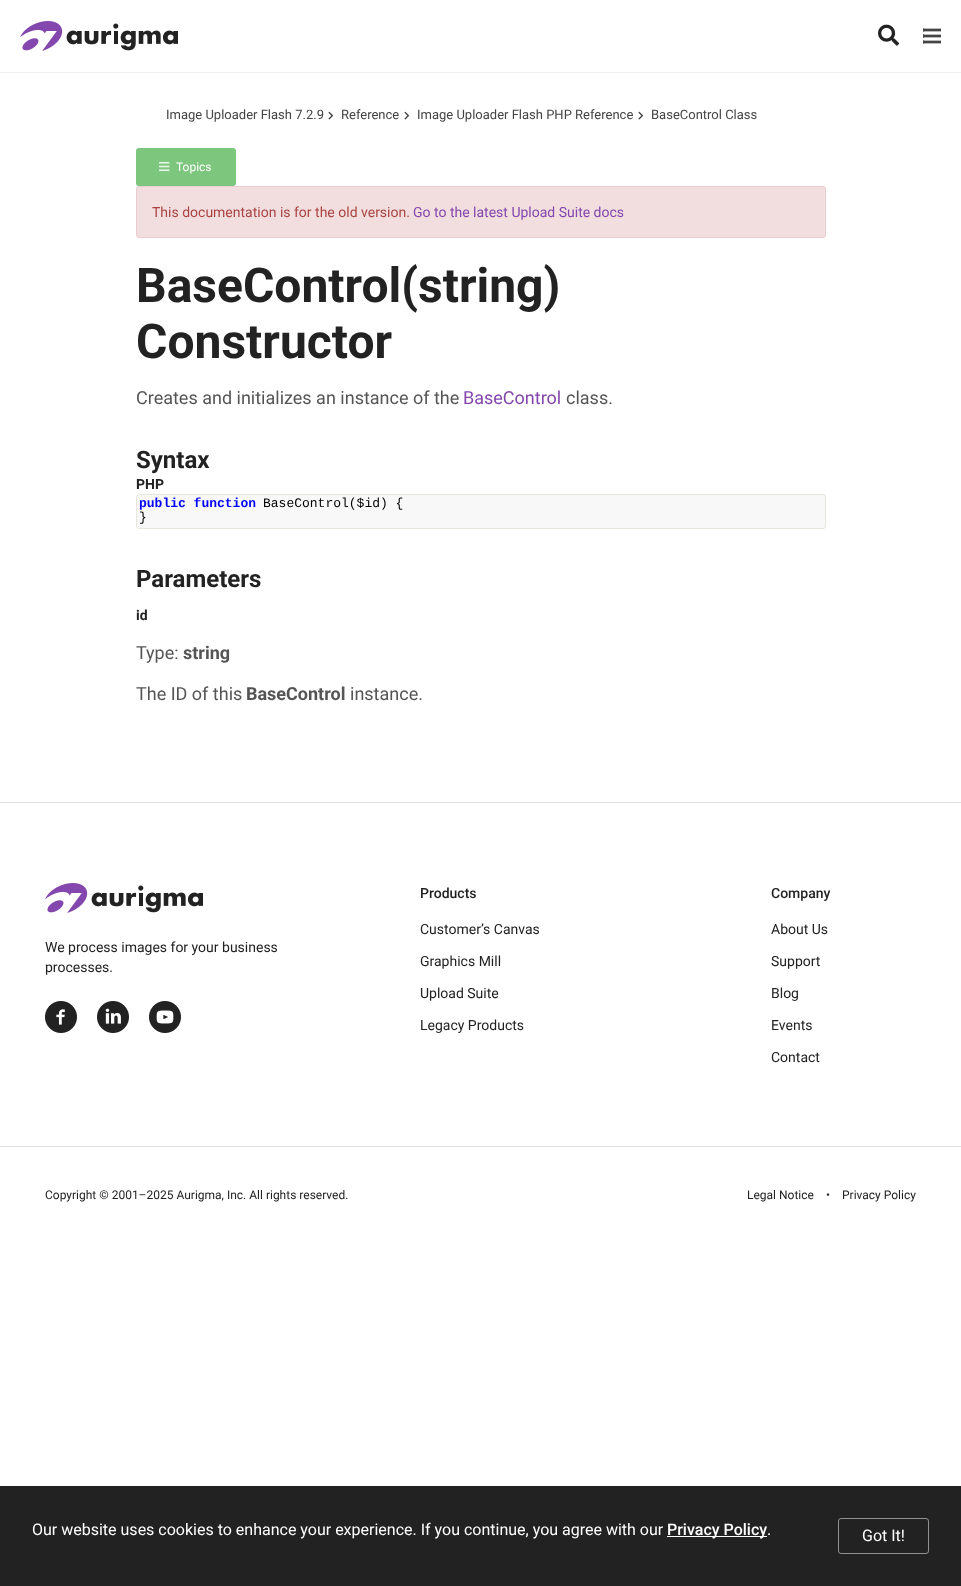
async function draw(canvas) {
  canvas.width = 961
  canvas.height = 1586
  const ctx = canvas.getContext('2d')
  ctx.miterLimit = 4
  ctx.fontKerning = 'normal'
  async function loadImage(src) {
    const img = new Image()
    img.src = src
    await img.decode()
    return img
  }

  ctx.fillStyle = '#fff'
  ctx.fillRect(0, 0, 961, 1586)
  ctx.fillStyle = '#eee'
  ctx.fillRect(0, 72, 961, 1)
  ctx.drawImage(await loadImage('image0.png'), 20, 21, 158, 30)
  ctx.drawImage(await loadImage('image1.png'), 878, 24, 21, 22)
  ctx.fillStyle = '#444'
  ctx.beginPath()
  ctx.roundRect(923, 28, 18, 4, 1)
  ctx.fill()
  ctx.fillStyle = '#bababa'
  ctx.fillRect(924, 28, 17, 1)
  ctx.fillRect(924, 31, 17, 1)
  ctx.fillStyle = '#444'
  ctx.beginPath()
  ctx.roundRect(923, 34, 18, 4, 1)
  ctx.fill()
  ctx.fillStyle = '#bababa'
  ctx.fillRect(924, 34, 17, 1)
  ctx.fillRect(924, 37, 17, 1)
  ctx.fillStyle = '#444'
  ctx.beginPath()
  ctx.roundRect(923, 40, 18, 4, 1)
  ctx.fill()
  ctx.fillStyle = '#bababa'
  ctx.fillRect(924, 40, 17, 1)
  ctx.fillRect(924, 43, 17, 1)
  ctx.font = '13px Roboto'
  ctx.fillStyle = '#444'
  ctx.fillText('Image Uploader Flash 7.2.9', 166, 119)
  ctx.drawImage(await loadImage('image2.png'), 328, 111, 6, 9)
  ctx.fillText('Reference', 341, 119)
  ctx.drawImage(await loadImage('image2.png'), 404, 111, 6, 9)
  ctx.fillText('Image Uploader Flash PHP Reference', 417, 119)
  ctx.drawImage(await loadImage('image2.png'), 638, 111, 6, 9)
  ctx.fillText('BaseControl Class', 651, 119)
  ctx.fillStyle = '#7dc67d'
  ctx.beginPath()
  ctx.roundRect(136, 148, 100, 38, 3)
  ctx.fill()
  ctx.drawImage(await loadImage('image3.png'), 159, 161, 11, 11)
  ctx.font = '12px Roboto'
  ctx.fillStyle = '#fff'
  ctx.fillText('Topics', 176, 171)
  ctx.fillStyle = '#f2dede'
  ctx.beginPath()
  ctx.roundRect(136.5, 186.5, 689, 51, 2.5)
  ctx.fill()
  ctx.strokeStyle = '#ebccd1'
  ctx.stroke()
  ctx.font = '14px Roboto'
  ctx.fillStyle = '#a94442'
  ctx.fillText('This documentation is for the old version.', 152, 217)
  ctx.fillStyle = '#8347ad'
  ctx.fillText('Go to the latest Upload Suite docs', 413, 217)
  ctx.font = 'bold 48px Roboto'
  ctx.fillStyle = '#222'
  ctx.fillText('BaseControl(string)', 136, 302)
  ctx.fillText('Constructor', 136, 358)
  ctx.font = '18px Roboto'
  ctx.fillStyle = '#555'
  ctx.fillText('Creates and initializes an instance of the', 136, 404)
  ctx.fillStyle = '#8347ad'
  ctx.fillText('BaseControl', 463, 404)
  ctx.fillStyle = '#555'
  ctx.fillText('class.', 566, 404)
  ctx.font = 'bold 24px Roboto'
  ctx.fillStyle = '#222'
  ctx.fillText('Syntax', 136, 468)
  ctx.font = 'bold 14px Roboto'
  ctx.fillText('PHP', 136, 489)
  ctx.fillStyle = '#f8f8f8'
  ctx.beginPath()
  ctx.roundRect(136.5, 494.5, 689, 34, 2.5)
  ctx.fill()
  ctx.strokeStyle = '#e7e5dc'
  ctx.stroke()
  ctx.font = 'bold 13px Liberation Mono'
  ctx.fillStyle = '#00f'
  ctx.fillText('public function', 139, 507)
  ctx.font = '13px Liberation Mono'
  ctx.fillStyle = '#000'
  ctx.fillText('BaseControl($id) {', 263, 507)
  ctx.fillText('}', 139, 521)
  ctx.font = 'bold 24px Roboto'
  ctx.fillStyle = '#222'
  ctx.fillText('Parameters', 136, 587)
  ctx.font = 'bold 14px Roboto'
  ctx.fillText('id', 136, 620)
  ctx.font = '18px Roboto'
  ctx.fillStyle = '#555'
  ctx.fillText('Type:', 136, 659)
  ctx.font = 'bold 18px Roboto'
  ctx.fillText('string', 183, 659)
  ctx.font = '18px Roboto'
  ctx.fillText('The ID of this', 136, 700)
  ctx.font = 'bold 18px Roboto'
  ctx.fillText('BaseControl', 246, 700)
  ctx.font = '18px Roboto'
  ctx.fillText('instance.', 350, 700)
  ctx.fillStyle = '#dedede'
  ctx.fillRect(0, 802, 961, 1)
  ctx.drawImage(await loadImage('image0.png'), 45, 883, 158, 30)
  ctx.font = '14px Roboto'
  ctx.fillStyle = '#222'
  ctx.fillText('We process images for your business', 45, 952)
  ctx.fillText('processes.', 45, 972)
  ctx.drawImage(await loadImage('image4.png'), 45, 1001, 32, 32)
  ctx.drawImage(await loadImage('image5.png'), 97, 1001, 32, 32)
  ctx.drawImage(await loadImage('image6.png'), 149, 1001, 32, 32)
  ctx.font = '500 14px Roboto'
  ctx.fillText('Products', 420, 898)
  ctx.font = '14px Roboto'
  ctx.fillText('Customer’s Canvas', 420, 934)
  ctx.fillText('Graphics Mill', 420, 966)
  ctx.fillText('Upload Suite', 420, 998)
  ctx.fillText('Legacy Products', 420, 1030)
  ctx.font = '500 14px Roboto'
  ctx.fillText('Company', 771, 898)
  ctx.font = '14px Roboto'
  ctx.fillText('About Us', 771, 934)
  ctx.fillText('Support', 771, 966)
  ctx.fillText('Blog', 771, 998)
  ctx.fillText('Events', 771, 1030)
  ctx.fillText('Contact', 771, 1062)
  ctx.font = '12px Roboto'
  ctx.fillText('Copyright © 2001–2025 Aurigma, Inc. All rights reserved.', 45, 1199)
  ctx.fillText('Legal Notice', 747, 1199)
  ctx.fillText('•', 826, 1199)
  ctx.fillText('Privacy Policy', 842, 1199)
  ctx.fillStyle = '#dedede'
  ctx.fillRect(0, 1146, 961, 1)
  ctx.fillStyle = '#222'
  ctx.fillRect(0, 1486, 961, 100)
  ctx.font = '16px Roboto'
  ctx.fillStyle = '#fff'
  ctx.fillText('Our website uses cookies to enhance your experience. If you continue, you agree with our', 32, 1535)
  ctx.fillRect(667, 1536, 100, 1)
  ctx.font = '500 16px Roboto'
  ctx.fillText('Privacy Policy', 667, 1535)
  ctx.font = '16px Roboto'
  ctx.fillText('.', 767, 1535)
  ctx.beginPath()
  ctx.roundRect(838.5, 1518.5, 90, 35, 2.5)
  ctx.strokeStyle = '#919191'
  ctx.stroke()
  ctx.fillText('Got It!', 862, 1541)
}

draw(document.querySelector('canvas'))
